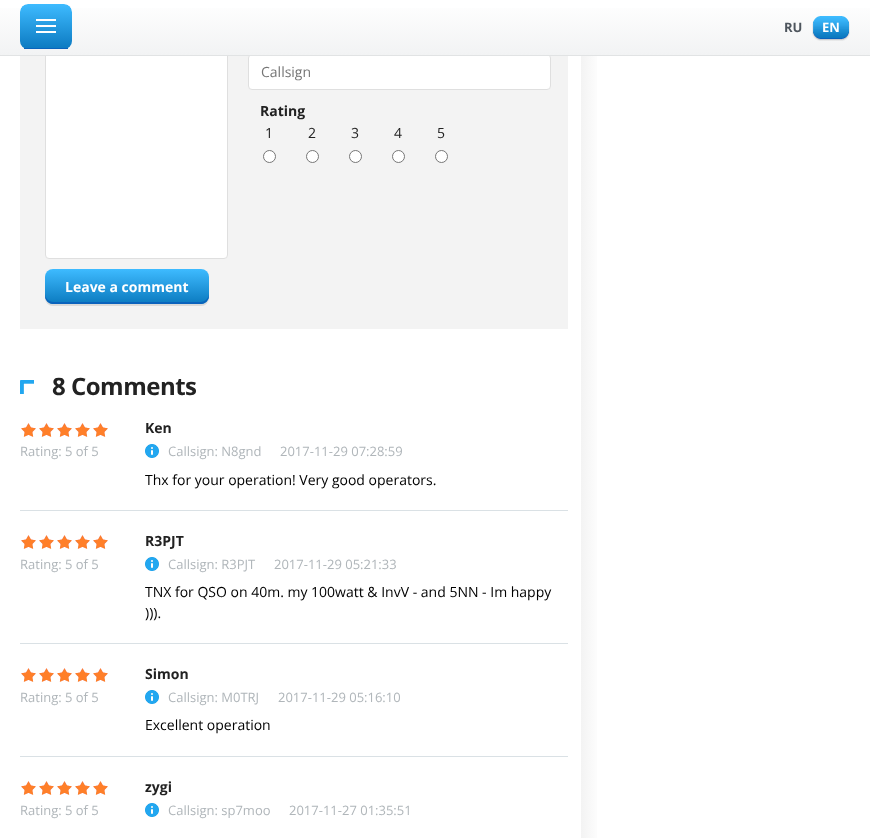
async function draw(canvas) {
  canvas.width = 870
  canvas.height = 838
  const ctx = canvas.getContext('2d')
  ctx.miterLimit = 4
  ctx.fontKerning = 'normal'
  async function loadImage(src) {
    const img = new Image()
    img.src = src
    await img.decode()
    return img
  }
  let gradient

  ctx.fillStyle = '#fff'
  ctx.fillRect(0, 0, 870, 838)
  ctx.fillStyle = '#f3f3f3'
  ctx.fillRect(20, 56, 548, 273)
  ctx.fillStyle = '#fff'
  ctx.beginPath()
  ctx.roundRect(45.5, 8.5, 182, 250, 3.5)
  ctx.fill()
  ctx.strokeStyle = '#dfdfdf'
  ctx.stroke()
  ctx.beginPath()
  ctx.roundRect(248.5, 54.5, 302, 35, 3.5)
  ctx.fill()
  ctx.stroke()
  gradient = ctx.createLinearGradient(435, 0, 435, 55)
  gradient.addColorStop(0, '#fff')
  gradient.addColorStop(1, '#f2f3f4')
  ctx.fillStyle = gradient
  ctx.fillRect(0, 8, 870, 47)
  ctx.fillStyle = '#e1e3e4'
  ctx.fillRect(0, 55, 870, 1)
  ctx.save()
  ctx.beginPath()
  ctx.roundRect(20, 4, 52, 45, 8)
  ctx.clip()
  gradient = ctx.createLinearGradient(46, 4, 46, 48)
  gradient.addColorStop(0, '#3ebbff')
  gradient.addColorStop(1, '#0d7bc2')
  ctx.fillStyle = gradient
  ctx.beginPath()
  ctx.roundRect(20, 4, 52, 44, [8, 8, 0, 0])
  ctx.fill()
  ctx.restore()
  ctx.fillStyle = '#0a63bc'
  ctx.fillRect(24, 48, 44, 1)
  ctx.fillStyle = '#fff'
  ctx.fillRect(36, 25, 20, 2)
  ctx.fillRect(36, 19, 20, 2)
  ctx.fillRect(36, 31, 20, 2)
  ctx.font = 'bold 13px Open Sans'
  ctx.fillStyle = '#4e555d'
  ctx.fillText('RU', 784, 32)
  ctx.drawImage(await loadImage('image0.png'), 812, 16, 28, 25)
  ctx.fillStyle = '#fff'
  ctx.fillText('EN', 822, 32)
  ctx.drawImage(await loadImage('image1.png'), 840, 16, 10, 25)
  ctx.font = '14px Open Sans'
  ctx.fillStyle = '#757575'
  ctx.fillText('Callsign', 261, 77)
  ctx.font = 'bold 14px Open Sans'
  ctx.fillStyle = '#222'
  ctx.fillText('Rating', 260, 116)
  ctx.font = '14px Open Sans'
  ctx.fillText('1', 265, 138)
  ctx.fillText('2', 308, 138)
  ctx.fillText('3', 351, 138)
  ctx.fillText('4', 394, 138)
  ctx.fillText('5', 437, 138)
  ctx.fillStyle = '#fff'
  ctx.beginPath()
  ctx.arc(269.5, 156.5, 6, 0, 2 * Math.PI)
  ctx.fill()
  ctx.strokeStyle = '#767676'
  ctx.stroke()
  ctx.beginPath()
  ctx.arc(312.5, 156.5, 6, 0, 2 * Math.PI)
  ctx.fill()
  ctx.stroke()
  ctx.beginPath()
  ctx.arc(355.5, 156.5, 6, 0, 2 * Math.PI)
  ctx.fill()
  ctx.stroke()
  ctx.beginPath()
  ctx.arc(398.5, 156.5, 6, 0, 2 * Math.PI)
  ctx.fill()
  ctx.stroke()
  ctx.beginPath()
  ctx.arc(441.5, 156.5, 6, 0, 2 * Math.PI)
  ctx.fill()
  ctx.stroke()
  ctx.fillStyle = '#0000001a'
  ctx.filter = 'blur(0.5px)'
  ctx.beginPath()
  ctx.roundRect(45, 271, 164, 35, 8)
  ctx.fill()
  ctx.filter = 'none'
  gradient = ctx.createLinearGradient(127, 269, 127, 304)
  gradient.addColorStop(0, '#3ebbff')
  gradient.addColorStop(1, '#0b7abf')
  ctx.fillStyle = gradient
  ctx.beginPath()
  ctx.roundRect(45, 269, 164, 35, 8)
  ctx.fill()
  ctx.fillStyle = '#0a63bc'
  ctx.beginPath()
  ctx.moveTo(45, 294)
  ctx.lineTo(45, 296)
  ctx.bezierCurveTo(45, 300, 49, 304, 53, 304)
  ctx.lineTo(201, 304)
  ctx.bezierCurveTo(205, 304, 209, 300, 209, 296)
  ctx.lineTo(209, 294)
  ctx.bezierCurveTo(209, 298, 205, 302, 201, 302)
  ctx.lineTo(53, 302)
  ctx.bezierCurveTo(49, 302, 45, 298, 45, 294)
  ctx.closePath()
  ctx.fill()
  ctx.font = 'bold 14px Open Sans'
  ctx.fillStyle = '#fff'
  ctx.fillText('Leave a comment', 65, 292)
  ctx.drawImage(await loadImage('image2.png'), 20, 380, 14, 14)
  ctx.letterSpacing = '-0.5px'
  ctx.font = 'bold 24px Open Sans'
  ctx.fillStyle = '#222'
  ctx.fillText('8 Comments', 52, 395)
  ctx.fillStyle = '#dae1e5'
  ctx.fillRect(20, 510, 548, 1)
  ctx.drawImage(await loadImage('image3.png'), 21, 423, 87, 14)
  ctx.letterSpacing = '0px'
  ctx.font = '13px Open Sans'
  ctx.fillStyle = '#b0b6ba'
  ctx.fillText('Rating: 5 of 5', 20, 456)
  ctx.font = 'bold 14px Open Sans'
  ctx.fillStyle = '#222'
  ctx.fillText('Ken', 145, 433)
  ctx.drawImage(await loadImage('image4.png'), 145, 444, 14, 14)
  ctx.font = '13px Open Sans'
  ctx.fillStyle = '#b0b6ba'
  ctx.fillText('Callsign: N8gnd', 168, 456)
  ctx.fillText('2017-11-29 07:28:59', 280, 456)
  ctx.font = '14px Open Sans'
  ctx.fillStyle = '#000'
  ctx.fillText('Thx for your operation! Very good operators.', 145, 485)
  ctx.fillStyle = '#dae1e5'
  ctx.fillRect(20, 643, 548, 1)
  ctx.drawImage(await loadImage('image3.png'), 21, 535, 87, 14)
  ctx.font = '13px Open Sans'
  ctx.fillStyle = '#b0b6ba'
  ctx.fillText('Rating: 5 of 5', 20, 569)
  ctx.font = 'bold 14px Open Sans'
  ctx.fillStyle = '#222'
  ctx.fillText('R3PJT', 145, 546)
  ctx.drawImage(await loadImage('image4.png'), 145, 557, 14, 14)
  ctx.font = '13px Open Sans'
  ctx.fillStyle = '#b0b6ba'
  ctx.fillText('Callsign: R3PJT', 168, 569)
  ctx.fillText('2017-11-29 05:21:33', 274, 569)
  ctx.font = '14px Open Sans'
  ctx.fillStyle = '#000'
  ctx.fillText('TNX for QSO on 40m. my 100watt & InvV - and 5NN - Im happy', 145, 597)
  ctx.fillText('))).', 145, 618)
  ctx.fillStyle = '#dae1e5'
  ctx.fillRect(20, 756, 548, 1)
  ctx.drawImage(await loadImage('image3.png'), 21, 668, 87, 14)
  ctx.font = '13px Open Sans'
  ctx.fillStyle = '#b0b6ba'
  ctx.fillText('Rating: 5 of 5', 20, 702)
  ctx.font = 'bold 14px Open Sans'
  ctx.fillStyle = '#222'
  ctx.fillText('Simon', 145, 679)
  ctx.drawImage(await loadImage('image4.png'), 145, 690, 14, 14)
  ctx.font = '13px Open Sans'
  ctx.fillStyle = '#b0b6ba'
  ctx.fillText('Callsign: M0TRJ', 168, 702)
  ctx.fillText('2017-11-29 05:16:10', 278, 702)
  ctx.font = '14px Open Sans'
  ctx.fillStyle = '#000'
  ctx.fillText('Excellent operation', 145, 730)
  ctx.drawImage(await loadImage('image3.png'), 21, 781, 87, 14)
  ctx.font = '13px Open Sans'
  ctx.fillStyle = '#b0b6ba'
  ctx.fillText('Rating: 5 of 5', 20, 815)
  ctx.font = 'bold 14px Open Sans'
  ctx.fillStyle = '#222'
  ctx.fillText('zygi', 145, 792)
  ctx.drawImage(await loadImage('image4.png'), 145, 803, 14, 14)
  ctx.font = '13px Open Sans'
  ctx.fillStyle = '#b0b6ba'
  ctx.fillText('Callsign: sp7moo', 168, 815)
  ctx.fillText('2017-11-27 01:35:51', 289, 815)
  gradient = ctx.createLinearGradient(581, -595, 601, -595)
  gradient.addColorStop(0, '#f3f3f3')
  gradient.addColorStop(1, '#fff')
  ctx.fillStyle = gradient
  ctx.fillRect(581, 56, 16, 782)
}

draw(document.querySelector('canvas'))
